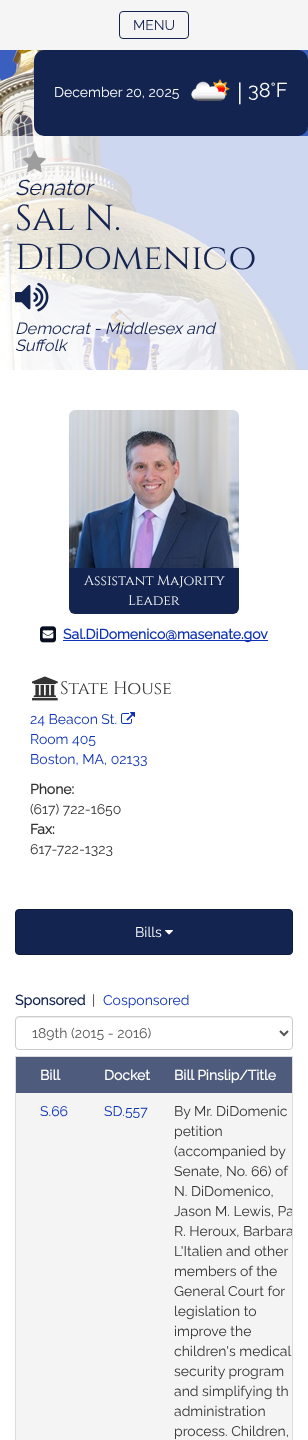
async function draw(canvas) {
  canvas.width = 308
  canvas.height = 1440
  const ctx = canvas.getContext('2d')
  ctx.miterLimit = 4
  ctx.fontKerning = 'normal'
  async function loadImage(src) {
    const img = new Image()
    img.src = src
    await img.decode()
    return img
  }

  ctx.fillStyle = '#fff'
  ctx.fillRect(0, 0, 308, 1440)
  ctx.drawImage(await loadImage('image0.png'), 0, 50, 308, 320)
  ctx.fillStyle = '#f5f5f5'
  ctx.fillRect(0, 0, 308, 50)
  ctx.beginPath()
  ctx.roundRect(119.5, 11.5, 69, 27, 3.5)
  ctx.strokeStyle = '#132450'
  ctx.stroke()
  ctx.font = '100 14px Raleway'
  ctx.fillStyle = '#132450'
  ctx.fillText('MENU', 133, 30)
  ctx.beginPath()
  ctx.roundRect(34, 50, 274, 86, 10)
  ctx.fill()
  ctx.fillStyle = '#fff'
  ctx.fillText('December 20, 2025', 54, 97)
  ctx.drawImage(await loadImage('image1.png'), 191, 79, 39, 22)
  ctx.font = '100 24px Raleway'
  ctx.fillText('|', 237, 101)
  ctx.font = '100 20px Raleway'
  ctx.fillText('38°F', 248, 97)
  ctx.fillStyle = '#ffffffbf'
  ctx.fillRect(0, 136, 308, 234)
  ctx.drawImage(await loadImage('image2.png'), 23, 150, 23, 22)
  ctx.font = 'italic 100 21.5px Raleway'
  ctx.fillStyle = '#132450'
  ctx.fillText('Senator', 15, 195)
  ctx.font = '36px Cinzel'
  ctx.fillText('Sal N.', 15, 230)
  ctx.fillText('DiDomenico', 15, 269)
  ctx.drawImage(await loadImage('image3.png'), 15, 282, 34, 30)
  ctx.font = 'italic 100 16.25px Raleway'
  ctx.fillText('Democrat - Middlesex and', 15, 334)
  ctx.fillText('Suffolk', 15, 351)
  ctx.drawImage(await loadImage('image4.png'), 69, 410, 170, 158)
  ctx.beginPath()
  ctx.roundRect(69, 568, 170, 46, [0, 0, 6, 6])
  ctx.fill()
  ctx.font = '14px Cinzel'
  ctx.fillStyle = '#fff'
  ctx.fillText('Assistant Majority', 84, 585)
  ctx.fillText('Leader', 128, 605)
  ctx.drawImage(await loadImage('image5.png'), 40, 626, 16, 17)
  ctx.fillStyle = '#0d32b6'
  ctx.fillRect(63, 640, 205, 1)
  ctx.font = 'bold 14px Raleway'
  ctx.fillText('Sal.DiDomenico@masenate.gov', 63, 639)
  ctx.drawImage(await loadImage('image6.png'), 32, 676, 26, 25)
  ctx.font = '18px Cinzel'
  ctx.fillStyle = '#333'
  ctx.fillText('State House', 60, 694)
  ctx.font = '100 14px Raleway'
  ctx.fillStyle = '#0d32b6'
  ctx.fillText('24 Beacon St.', 30, 724)
  ctx.drawImage(await loadImage('image7.png'), 121, 712, 14, 12)
  ctx.fillText('Room 405', 30, 744)
  ctx.fillText('Boston, MA, 02133', 30, 764)
  ctx.font = 'bold 14px Raleway'
  ctx.fillStyle = '#333'
  ctx.fillText('Phone:', 30, 794)
  ctx.font = '100 14px Raleway'
  ctx.fillText('(617) 722-1650', 30, 814)
  ctx.font = 'bold 14px Raleway'
  ctx.fillText('Fax:', 30, 834)
  ctx.font = '100 14px Raleway'
  ctx.fillText('617-722-1323', 30, 854)
  ctx.fillStyle = '#132450'
  ctx.beginPath()
  ctx.roundRect(15.5, 909.5, 277, 45, 3.5)
  ctx.fill()
  ctx.strokeStyle = '#0e1b3b'
  ctx.stroke()
  ctx.fillStyle = '#fff'
  ctx.fillText('Bills', 135, 937)
  ctx.drawImage(await loadImage('image8.png'), 165, 930, 8, 5)
  ctx.font = 'bold 14px Raleway'
  ctx.fillStyle = '#132450'
  ctx.fillText('Sponsored', 15, 1005)
  ctx.font = '100 14px Raleway'
  ctx.fillStyle = '#333'
  ctx.fillText('|', 92, 1005)
  ctx.fillStyle = '#0d32b6'
  ctx.fillText('Cosponsored', 103, 1005)
  ctx.fillStyle = '#ececec'
  ctx.beginPath()
  ctx.moveTo(19, 1018)
  ctx.lineTo(289, 1018)
  ctx.bezierCurveTo(291, 1018, 292, 1019, 292, 1021)
  ctx.lineTo(292, 1020)
  ctx.bezierCurveTo(292, 1018, 291, 1017, 289, 1017)
  ctx.lineTo(19, 1017)
  ctx.bezierCurveTo(17, 1017, 16, 1018, 16, 1020)
  ctx.lineTo(16, 1021)
  ctx.bezierCurveTo(16, 1019, 17, 1018, 19, 1018)
  ctx.closePath()
  ctx.fill()
  ctx.beginPath()
  ctx.roundRect(15.5, 1016.5, 277, 33, 3.5)
  ctx.strokeStyle = '#ccc'
  ctx.stroke()
  ctx.beginPath()
  ctx.moveTo(280, 1031)
  ctx.lineTo(284, 1035)
  ctx.lineTo(288, 1031)
  ctx.strokeStyle = '#555'
  ctx.lineWidth = 2
  ctx.stroke()
  ctx.fillStyle = '#555'
  ctx.fillText('189th (2015 - 2016)', 32, 1038)
  ctx.strokeStyle = '#ddd'
  ctx.lineWidth = 1
  ctx.strokeRect(15.5, 1056.5, 277, 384)
  ctx.fillStyle = '#4e5b7c'
  ctx.fillRect(16, 1057, 276, 36)
  ctx.font = 'bold 14px Raleway'
  ctx.fillStyle = '#fff'
  ctx.fillText('Bill', 40, 1080)
  ctx.fillText('Docket', 104, 1080)
  ctx.fillText('Bill Pinslip/Title', 174, 1080)
  ctx.fillStyle = '#f4f4f4'
  ctx.fillRect(16, 1093, 276, 347)
  ctx.font = '100 14px Raleway'
  ctx.fillStyle = '#0d32b6'
  ctx.fillText('S.66', 40, 1116)
  ctx.fillText('SD.557', 104, 1116)
  ctx.fillStyle = '#333'
  ctx.fillText('By Mr. DiDomenic', 174, 1116)
  ctx.fillText('petition', 174, 1136)
  ctx.fillText('(accompanied by', 174, 1156)
  ctx.fillText('Senate, No. 66) of', 174, 1176)
  ctx.fillText('N. DiDomenico,', 174, 1196)
  ctx.save()
  ctx.beginPath()
  ctx.rect(16, 1057, 276, 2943)
  ctx.clip()
  ctx.fillText('Jason M. Lewis, Pa', 174, 1216)
  ctx.fillText('R. Heroux, Barbara', 174, 1236)
  ctx.restore()
  ctx.fillText('L\'Italien and other', 174, 1256)
  ctx.fillText('members of the', 174, 1276)
  ctx.fillText('General Court for', 174, 1296)
  ctx.fillText('legislation to', 174, 1316)
  ctx.fillText('improve the', 174, 1336)
  ctx.fillText('children\'s medical', 174, 1356)
  ctx.fillText('security program', 174, 1376)
  ctx.fillText('and simplifying th', 174, 1396)
  ctx.fillText('administration', 174, 1416)
  ctx.fillText('process. Children,', 174, 1436)
}

draw(document.querySelector('canvas'))
